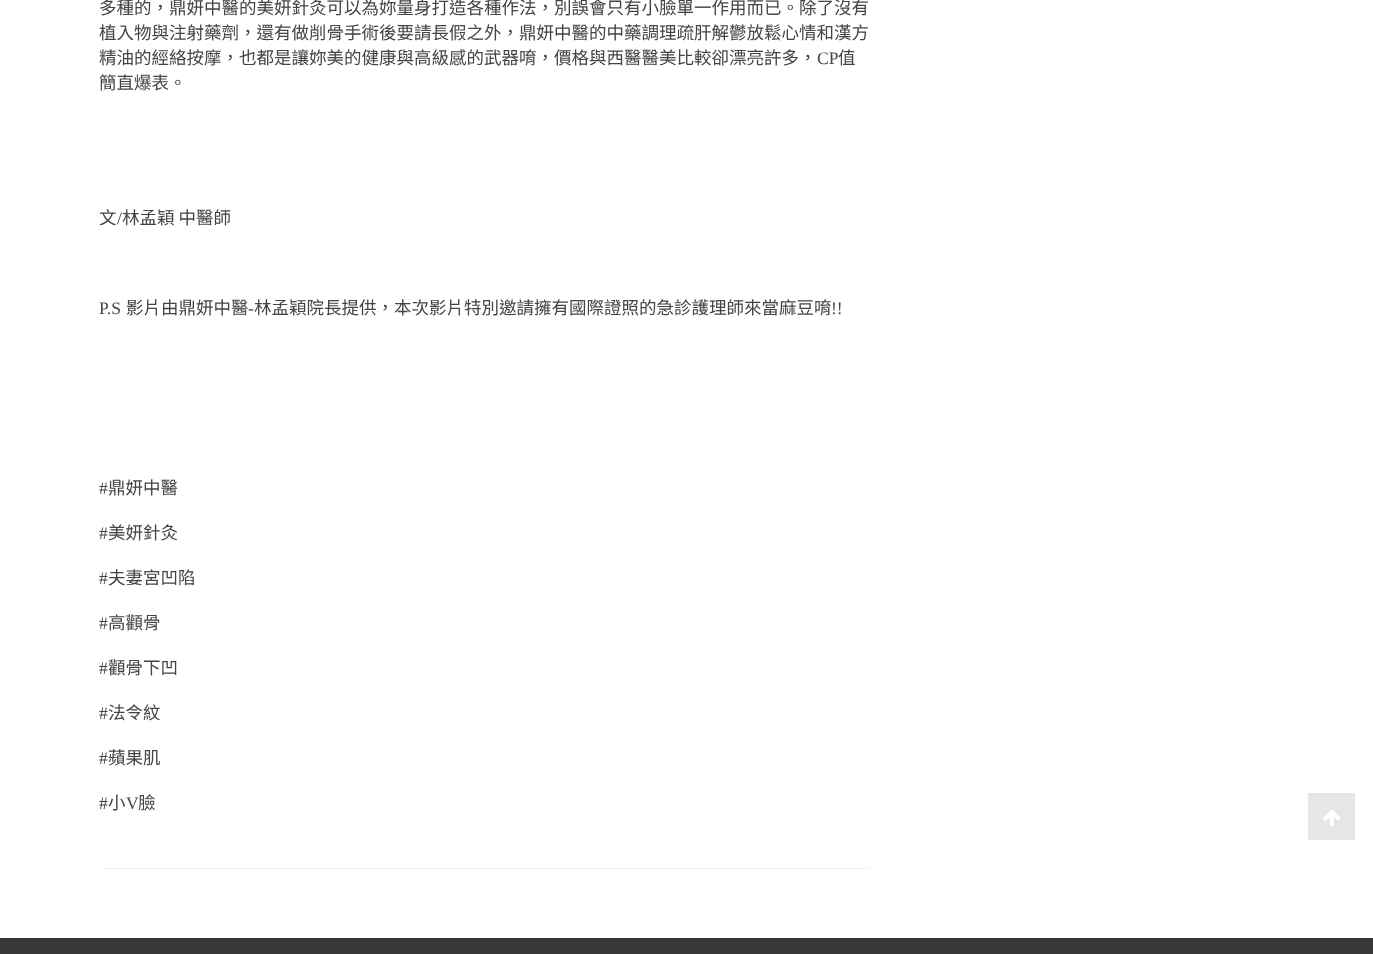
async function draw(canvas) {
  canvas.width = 1373
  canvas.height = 954
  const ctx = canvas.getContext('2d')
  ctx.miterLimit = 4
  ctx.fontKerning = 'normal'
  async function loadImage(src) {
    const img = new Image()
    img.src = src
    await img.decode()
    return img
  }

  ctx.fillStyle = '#fff'
  ctx.fillRect(0, 0, 1373, 954)
  ctx.font = '17.5px Noto Sans CJK TC'
  ctx.fillStyle = '#444'
  ctx.fillText('多種的，鼎妍中醫的美妍針灸可以為妳量身打造各種作法，別誤會只有小臉單一作用而已。除了沒有', 99, 14)
  ctx.fillText('植入物與注射藥劑，還有做削骨手術後要請長假之外，鼎妍中醫的中藥調理疏肝解鬱放鬆心情和漢方', 99, 39)
  ctx.fillText('精油的經絡按摩，也都是讓妳美的健康與高級感的武器唷，價格與西醫醫美比較卻漂亮許多，', 99, 64)
  ctx.font = '17.5px Liberation Serif'
  ctx.fillText('CP', 817, 64)
  ctx.font = '17.5px Noto Sans CJK TC'
  ctx.fillText('值', 838, 64)
  ctx.fillText('簡直爆表。', 99, 89)
  ctx.fillText('文', 99, 224)
  ctx.font = '17.5px Liberation Serif'
  ctx.fillText('/', 117, 224)
  ctx.font = '17.5px Noto Sans CJK TC'
  ctx.fillText('林孟穎 中醫師', 122, 224)
  ctx.font = '17.5px Liberation Serif'
  ctx.fillText('P.S', 99, 314)
  ctx.font = '17.5px Noto Sans CJK TC'
  ctx.fillText('影片由鼎妍中醫', 126, 314)
  ctx.font = '17.5px Liberation Serif'
  ctx.fillText('-', 248, 314)
  ctx.font = '17.5px Noto Sans CJK TC'
  ctx.fillText('林孟穎院長提供，本次影片特別邀請擁有國際證照的急診護理師來當麻豆唷', 254, 314)
  ctx.font = '17.5px Liberation Serif'
  ctx.fillText('!!', 831, 314)
  ctx.fillText('#', 99, 494)
  ctx.font = '17.5px Noto Sans CJK TC'
  ctx.fillText('鼎妍中醫', 108, 494)
  ctx.font = '17.5px Liberation Serif'
  ctx.fillText('#', 99, 539)
  ctx.font = '17.5px Noto Sans CJK TC'
  ctx.fillText('美妍針灸', 108, 539)
  ctx.font = '17.5px Liberation Serif'
  ctx.fillText('#', 99, 584)
  ctx.font = '17.5px Noto Sans CJK TC'
  ctx.fillText('夫妻宮凹陷', 108, 584)
  ctx.font = '17.5px Liberation Serif'
  ctx.fillText('#', 99, 629)
  ctx.font = '17.5px Noto Sans CJK TC'
  ctx.fillText('高顴骨', 108, 629)
  ctx.font = '17.5px Liberation Serif'
  ctx.fillText('#', 99, 674)
  ctx.font = '17.5px Noto Sans CJK TC'
  ctx.fillText('顴骨下凹', 108, 674)
  ctx.font = '17.5px Liberation Serif'
  ctx.fillText('#', 99, 719)
  ctx.font = '17.5px Noto Sans CJK TC'
  ctx.fillText('法令紋', 108, 719)
  ctx.font = '17.5px Liberation Serif'
  ctx.fillText('#', 99, 764)
  ctx.font = '17.5px Noto Sans CJK TC'
  ctx.fillText('蘋果肌', 108, 764)
  ctx.font = '17.5px Liberation Serif'
  ctx.fillText('#', 99, 809)
  ctx.font = '17.5px Noto Sans CJK TC'
  ctx.fillText('小', 108, 809)
  ctx.font = '17.5px Liberation Serif'
  ctx.fillText('V', 126, 809)
  ctx.font = '17.5px Noto Sans CJK TC'
  ctx.fillText('臉', 138, 809)
  ctx.fillStyle = '#f2f2f2'
  ctx.fillRect(100, 868, 770, 1)
  ctx.fillStyle = '#373737'
  ctx.fillRect(0, 938, 1373, 16)
  ctx.fillStyle = '#e6e6e6'
  ctx.fillRect(1308, 793, 47, 47)
  ctx.drawImage(await loadImage('image0.png'), 1323, 810, 18, 17)
}

draw(document.querySelector('canvas'))
